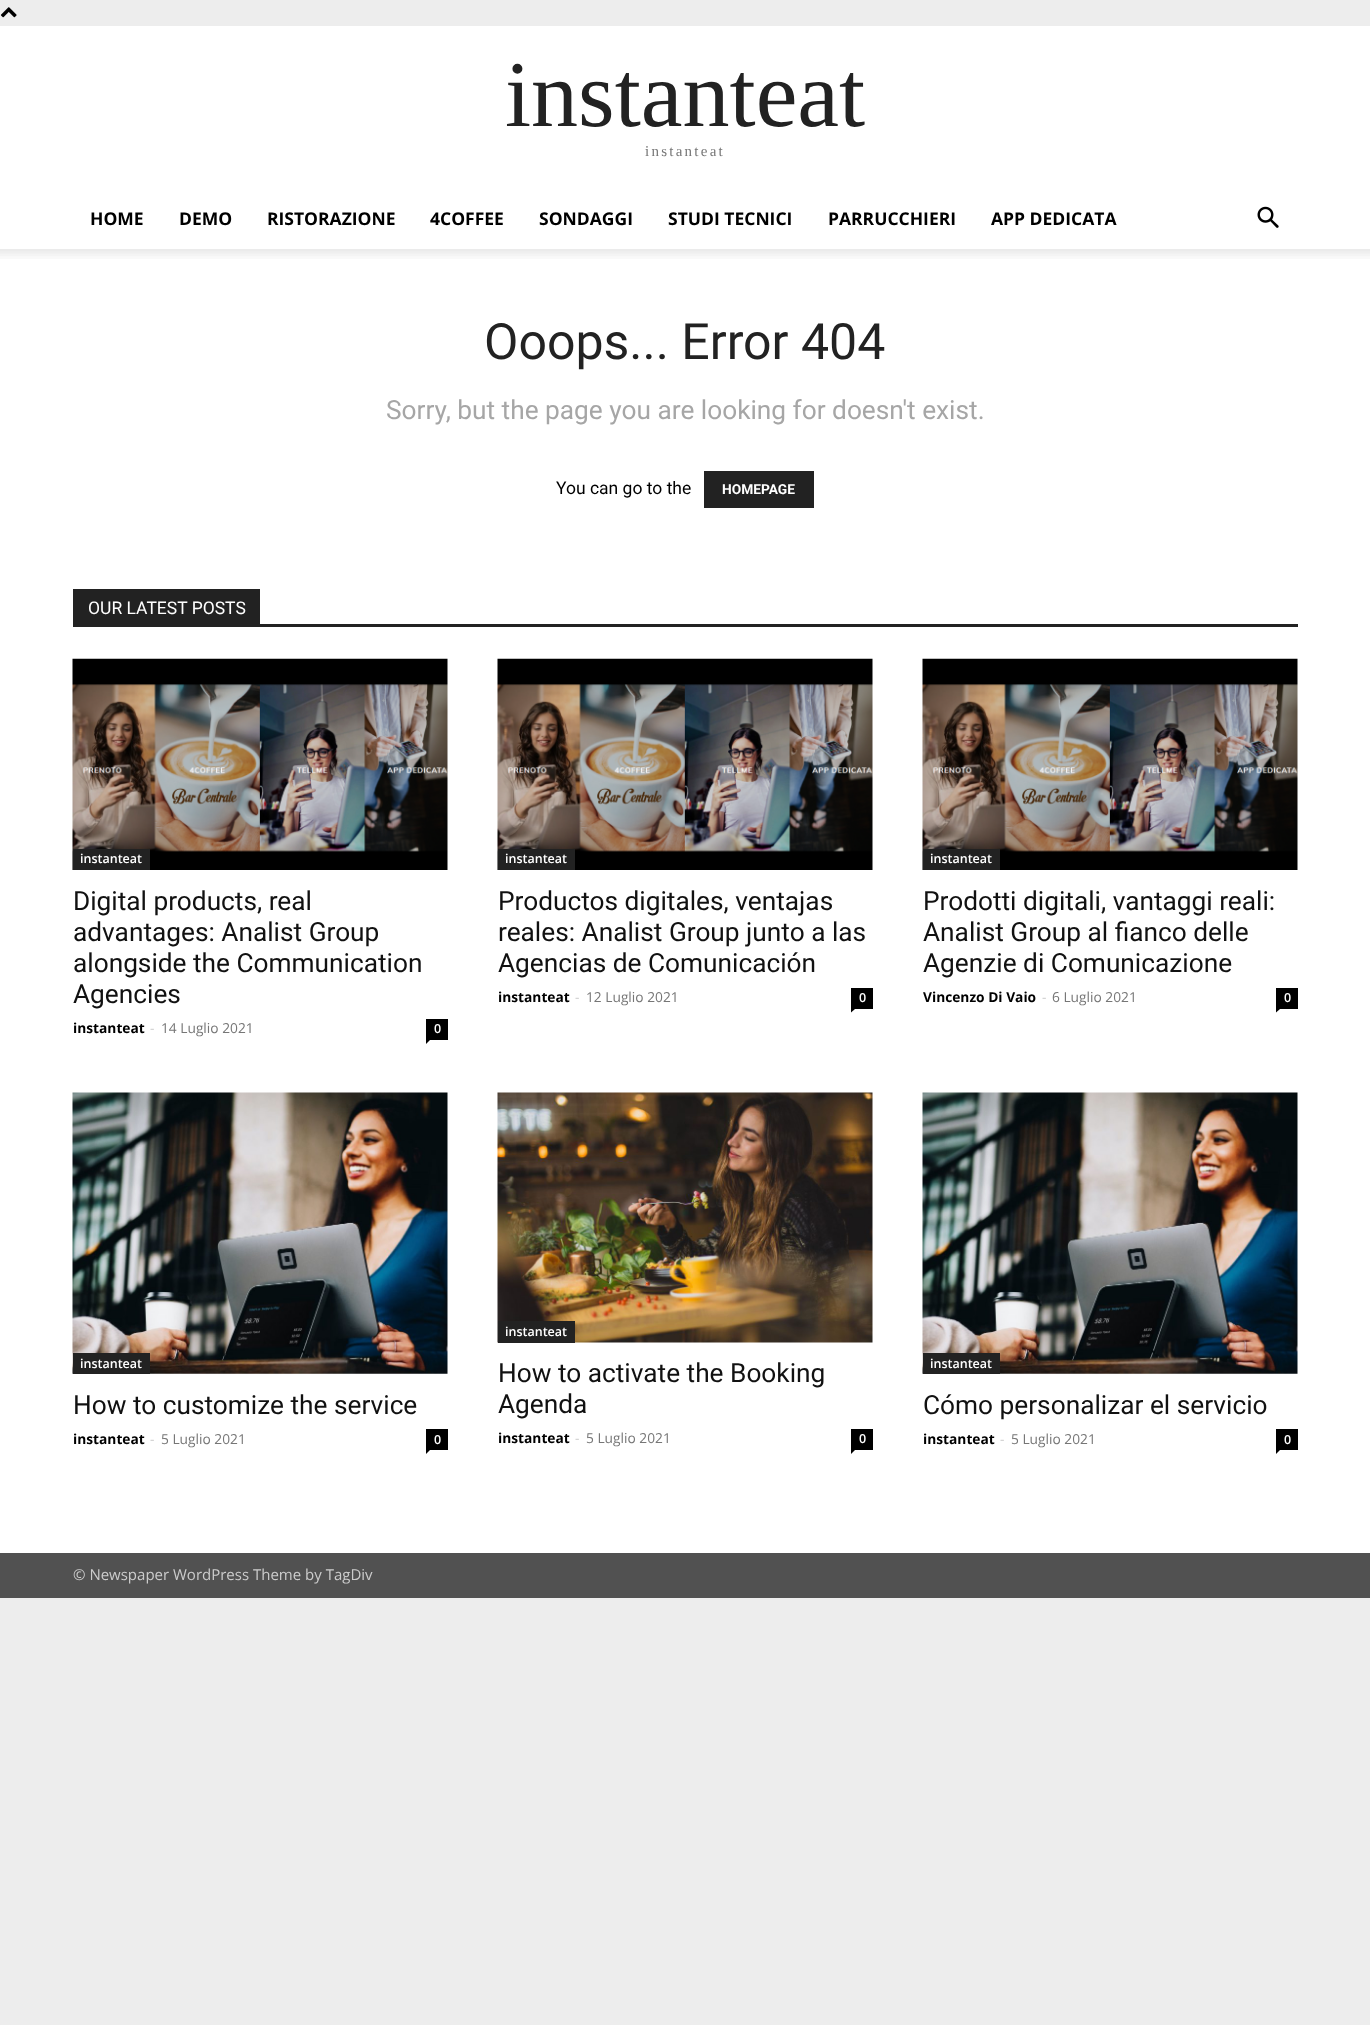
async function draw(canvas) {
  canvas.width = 1370
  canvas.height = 2025
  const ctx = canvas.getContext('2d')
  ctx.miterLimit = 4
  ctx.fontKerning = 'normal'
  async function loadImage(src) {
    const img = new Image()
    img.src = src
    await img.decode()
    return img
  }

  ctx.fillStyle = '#ededed'
  ctx.fillRect(0, 0, 1370, 2025)
  ctx.drawImage(await loadImage('image0.png'), 0, 7, 17, 11)
  ctx.fillStyle = '#fff'
  ctx.fillRect(0, 26, 1370, 223)
  ctx.font = '94px Liberation Serif'
  ctx.fillStyle = '#222'
  ctx.fillText('instanteat', 505, 126)
  ctx.letterSpacing = '2.25px'
  ctx.font = '15px Liberation Serif'
  ctx.fillStyle = '#767676'
  ctx.fillText('instanteat', 645, 156)
  ctx.letterSpacing = '0px'
  ctx.font = 'bold 17.5px Open Sans'
  ctx.fillStyle = '#000'
  ctx.fillText('HOME', 90, 225)
  ctx.fillText('DEMO', 179, 225)
  ctx.fillText('RISTORAZIONE', 267, 225)
  ctx.fillText('4COFFEE', 430, 225)
  ctx.fillText('SONDAGGI', 539, 225)
  ctx.fillText('STUDI TECNICI', 668, 225)
  ctx.fillText('PARRUCCHIERI', 828, 225)
  ctx.fillText('APP DEDICATA', 991, 225)
  ctx.drawImage(await loadImage('image1.png'), 1257, 206, 22, 22)
  ctx.fillStyle = '#fff'
  ctx.fillRect(0, 249, 1370, 1304)
  ctx.drawImage(await loadImage('image2.png'), 0, 249, 1370, 10)
  ctx.font = '50px Roboto'
  ctx.fillStyle = '#222'
  ctx.fillText('Ooops... Error 404', 484, 359)
  ctx.font = '26.25px Roboto'
  ctx.fillStyle = '#a6a6a6'
  ctx.fillText('Sorry, but the page you are looking for doesn\'t exist.', 386, 419)
  ctx.font = '17.5px Roboto'
  ctx.fillStyle = '#000'
  ctx.fillText('You can go to the', 556, 494)
  ctx.fillStyle = '#222'
  ctx.fillRect(704, 471, 110, 37)
  ctx.font = 'bold 13.75px Roboto'
  ctx.fillStyle = '#fff'
  ctx.fillText('HOMEPAGE', 722, 494)
  ctx.fillStyle = '#222'
  ctx.fillRect(73, 624, 1225, 3)
  ctx.fillRect(73, 589, 187, 35)
  ctx.font = '17.5px Roboto'
  ctx.fillStyle = '#fff'
  ctx.fillText('OUR LATEST POSTS', 88, 614)
  ctx.drawImage(await loadImage('image3.png'), 72, 658, 376, 212)
  ctx.fillStyle = '#222'
  ctx.fillRect(73, 849, 77, 21)
  ctx.font = '600 12.5px Open Sans'
  ctx.fillStyle = '#fff'
  ctx.fillText('instanteat', 80, 863)
  ctx.font = '26.25px Roboto'
  ctx.fillStyle = '#111'
  ctx.fillText('Digital products, real', 73, 910)
  ctx.fillText('advantages: Analist Group', 73, 941)
  ctx.fillText('alongside the Communication', 73, 972)
  ctx.fillText('Agencies', 73, 1003)
  ctx.font = 'bold 13.75px Open Sans'
  ctx.fillStyle = '#000'
  ctx.fillText('instanteat', 73, 1033)
  ctx.font = '13.75px Open Sans'
  ctx.fillStyle = '#ccc'
  ctx.fillText('-', 150, 1033)
  ctx.fillStyle = '#767676'
  ctx.fillText('14 Luglio 2021', 161, 1033)
  ctx.fillStyle = '#000'
  ctx.fillRect(426, 1019, 22, 21)
  ctx.font = '600 12.5px Open Sans'
  ctx.fillStyle = '#fff'
  ctx.fillText('0', 434, 1033)
  ctx.fillStyle = '#000'
  ctx.beginPath()
  ctx.moveTo(426, 1040)
  ctx.lineTo(430, 1040)
  ctx.lineTo(426, 1044)
  ctx.closePath()
  ctx.fill()
  ctx.drawImage(await loadImage('image4.png'), 497, 658, 376, 212)
  ctx.fillStyle = '#222'
  ctx.fillRect(498, 849, 77, 21)
  ctx.fillStyle = '#fff'
  ctx.fillText('instanteat', 505, 863)
  ctx.font = '26.25px Roboto'
  ctx.fillStyle = '#111'
  ctx.fillText('Productos digitales, ventajas', 498, 910)
  ctx.fillText('reales: Analist Group junto a las', 498, 941)
  ctx.fillText('Agencias de Comunicación', 498, 972)
  ctx.font = 'bold 13.75px Open Sans'
  ctx.fillStyle = '#000'
  ctx.fillText('instanteat', 498, 1002)
  ctx.font = '13.75px Open Sans'
  ctx.fillStyle = '#ccc'
  ctx.fillText('-', 575, 1002)
  ctx.fillStyle = '#767676'
  ctx.fillText('12 Luglio 2021', 586, 1002)
  ctx.fillStyle = '#000'
  ctx.fillRect(851, 988, 22, 21)
  ctx.font = '600 12.5px Open Sans'
  ctx.fillStyle = '#fff'
  ctx.fillText('0', 859, 1002)
  ctx.fillStyle = '#000'
  ctx.beginPath()
  ctx.moveTo(851, 1009)
  ctx.lineTo(855, 1009)
  ctx.lineTo(851, 1012.5)
  ctx.closePath()
  ctx.fill()
  ctx.drawImage(await loadImage('image4.png'), 922, 658, 376, 212)
  ctx.fillStyle = '#222'
  ctx.fillRect(923, 849, 77, 21)
  ctx.fillStyle = '#fff'
  ctx.fillText('instanteat', 930, 863)
  ctx.font = '26.25px Roboto'
  ctx.fillStyle = '#111'
  ctx.fillText('Prodotti digitali, vantaggi reali:', 923, 910)
  ctx.fillText('Analist Group al fianco delle', 923, 941)
  ctx.fillText('Agenzie di Comunicazione', 923, 972)
  ctx.font = 'bold 13.75px Open Sans'
  ctx.fillStyle = '#000'
  ctx.fillText('Vincenzo Di Vaio', 923, 1002)
  ctx.font = '13.75px Open Sans'
  ctx.fillStyle = '#ccc'
  ctx.fillText('-', 1042, 1002)
  ctx.fillStyle = '#767676'
  ctx.fillText('6 Luglio 2021', 1052, 1002)
  ctx.fillStyle = '#000'
  ctx.fillRect(1276, 988, 22, 21)
  ctx.font = '600 12.5px Open Sans'
  ctx.fillStyle = '#fff'
  ctx.fillText('0', 1284, 1002)
  ctx.fillStyle = '#000'
  ctx.beginPath()
  ctx.moveTo(1276, 1009)
  ctx.lineTo(1280, 1009)
  ctx.lineTo(1276, 1012.5)
  ctx.closePath()
  ctx.fill()
  ctx.drawImage(await loadImage('image5.png'), 72, 1092, 376, 282)
  ctx.fillStyle = '#222'
  ctx.fillRect(73, 1353, 77, 21)
  ctx.fillStyle = '#fff'
  ctx.fillText('instanteat', 80, 1368)
  ctx.font = '26.25px Roboto'
  ctx.fillStyle = '#111'
  ctx.fillText('How to customize the service', 73, 1414)
  ctx.font = 'bold 13.75px Open Sans'
  ctx.fillStyle = '#000'
  ctx.fillText('instanteat', 73, 1444)
  ctx.font = '13.75px Open Sans'
  ctx.fillStyle = '#ccc'
  ctx.fillText('-', 150, 1444)
  ctx.fillStyle = '#767676'
  ctx.fillText('5 Luglio 2021', 161, 1444)
  ctx.fillStyle = '#000'
  ctx.fillRect(426, 1429, 22, 21)
  ctx.font = '600 12.5px Open Sans'
  ctx.fillStyle = '#fff'
  ctx.fillText('0', 434, 1444)
  ctx.fillStyle = '#000'
  ctx.beginPath()
  ctx.moveTo(426, 1450)
  ctx.lineTo(430, 1450)
  ctx.lineTo(426, 1454)
  ctx.closePath()
  ctx.fill()
  ctx.drawImage(await loadImage('image6.png'), 497, 1092, 376, 251)
  ctx.fillStyle = '#222'
  ctx.fillRect(498, 1321, 77, 22)
  ctx.fillStyle = '#fff'
  ctx.fillText('instanteat', 505, 1336)
  ctx.font = '26.25px Roboto'
  ctx.fillStyle = '#111'
  ctx.fillText('How to activate the Booking', 498, 1382)
  ctx.fillText('Agenda', 498, 1413)
  ctx.font = 'bold 13.75px Open Sans'
  ctx.fillStyle = '#000'
  ctx.fillText('instanteat', 498, 1443)
  ctx.font = '13.75px Open Sans'
  ctx.fillStyle = '#ccc'
  ctx.fillText('-', 575, 1443)
  ctx.fillStyle = '#767676'
  ctx.fillText('5 Luglio 2021', 586, 1443)
  ctx.fillStyle = '#000'
  ctx.fillRect(851, 1429, 22, 21)
  ctx.font = '600 12.5px Open Sans'
  ctx.fillStyle = '#fff'
  ctx.fillText('0', 859, 1443)
  ctx.fillStyle = '#000'
  ctx.beginPath()
  ctx.moveTo(851, 1450)
  ctx.lineTo(855, 1450)
  ctx.lineTo(851, 1454)
  ctx.closePath()
  ctx.fill()
  ctx.drawImage(await loadImage('image7.png'), 922, 1092, 376, 282)
  ctx.fillStyle = '#222'
  ctx.fillRect(923, 1353, 77, 21)
  ctx.fillStyle = '#fff'
  ctx.fillText('instanteat', 930, 1368)
  ctx.font = '26.25px Roboto'
  ctx.fillStyle = '#111'
  ctx.fillText('Cómo personalizar el servicio', 923, 1414)
  ctx.font = 'bold 13.75px Open Sans'
  ctx.fillStyle = '#000'
  ctx.fillText('instanteat', 923, 1444)
  ctx.font = '13.75px Open Sans'
  ctx.fillStyle = '#ccc'
  ctx.fillText('-', 1000, 1444)
  ctx.fillStyle = '#767676'
  ctx.fillText('5 Luglio 2021', 1011, 1444)
  ctx.fillStyle = '#000'
  ctx.fillRect(1276, 1429, 22, 21)
  ctx.font = '600 12.5px Open Sans'
  ctx.fillStyle = '#fff'
  ctx.fillText('0', 1284, 1444)
  ctx.fillStyle = '#000'
  ctx.beginPath()
  ctx.moveTo(1276, 1450)
  ctx.lineTo(1280, 1450)
  ctx.lineTo(1276, 1454)
  ctx.closePath()
  ctx.fill()
  ctx.fillStyle = '#515151'
  ctx.fillRect(0, 1553, 1370, 45)
  ctx.font = '15px Open Sans'
  ctx.fillStyle = '#ccc'
  ctx.fillText('© Newspaper WordPress Theme by TagDiv', 73, 1580)
}

draw(document.querySelector('canvas'))
